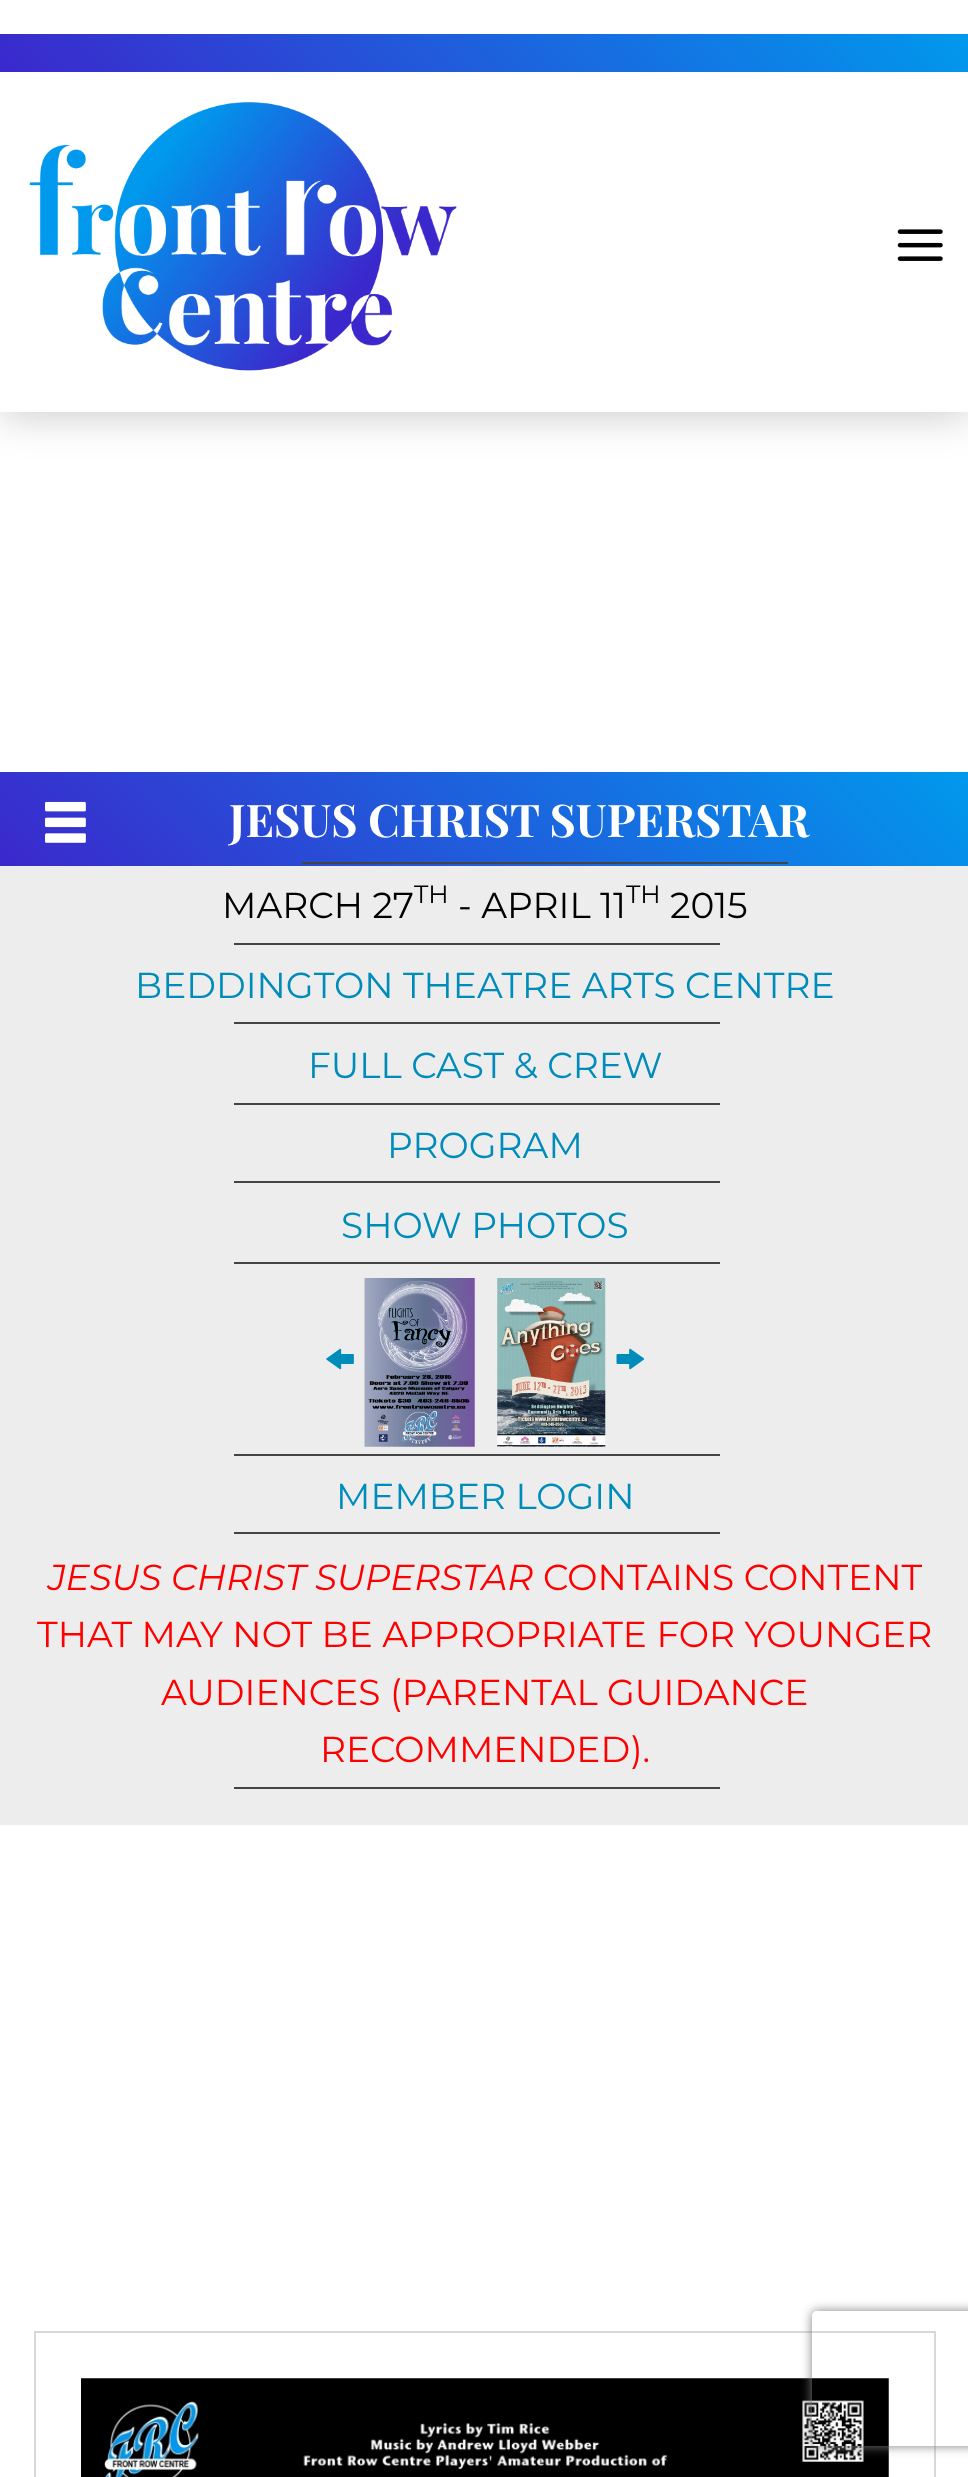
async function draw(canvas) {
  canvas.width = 968
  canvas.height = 2477
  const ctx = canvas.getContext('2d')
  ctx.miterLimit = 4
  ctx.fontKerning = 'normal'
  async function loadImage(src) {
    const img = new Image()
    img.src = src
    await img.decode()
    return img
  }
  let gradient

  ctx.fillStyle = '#fff'
  ctx.fillRect(0, 0, 968, 2477)
  ctx.fillStyle = '#00000033'
  ctx.filter = 'blur(20px)'
  ctx.beginPath()
  ctx.rect(0, 5, 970, 411)
  ctx.fill()
  ctx.filter = 'none'
  ctx.fillStyle = '#fff'
  ctx.fillRect(0, 0, 968, 412)
  gradient = ctx.createLinearGradient(233, 305, 737, -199)
  gradient.addColorStop(0, '#3b28cc')
  gradient.addColorStop(1, '#0099ed')
  ctx.fillStyle = gradient
  ctx.fillRect(0, 34, 968, 38)
  ctx.drawImage(await loadImage('image0.png'), 29, 102, 428, 269)
  ctx.drawImage(await loadImage('image1.png'), 897, 229, 46, 32)
  ctx.fillStyle = '#ededed'
  ctx.fillRect(0, 866, 968, 959)
  gradient = ctx.createLinearGradient(219, 1085, 751, 553)
  gradient.addColorStop(0, '#3b28cc')
  gradient.addColorStop(1, '#0099ed')
  ctx.fillStyle = gradient
  ctx.fillRect(0, 772, 968, 94)
  ctx.drawImage(await loadImage('image2.png'), 45, 801, 41, 42)
  ctx.font = 'bold 45px Playfair Display'
  ctx.fillStyle = '#fff'
  ctx.fillText('JESUS CHRIST SUPERSTAR', 229, 837)
  ctx.fillStyle = '#444'
  ctx.fillRect(302, 862, 486, 2)
  ctx.font = '100 36px Montserrat'
  ctx.fillStyle = '#000'
  ctx.fillText('MARCH 27', 222, 918)
  ctx.font = '100 25px Montserrat'
  ctx.fillText('TH', 414, 903)
  ctx.font = '100 36px Montserrat'
  ctx.fillText('- APRIL 11', 458, 918)
  ctx.font = '100 25px Montserrat'
  ctx.fillText('TH', 626, 903)
  ctx.font = '100 36px Montserrat'
  ctx.fillText('2015', 670, 918)
  ctx.fillStyle = '#444'
  ctx.fillRect(234, 943, 486, 2)
  ctx.fillStyle = '#008cba'
  ctx.fillText('BEDDINGTON THEATRE ARTS CENTRE', 135, 998)
  ctx.fillStyle = '#444'
  ctx.fillRect(234, 1022, 486, 2)
  ctx.fillStyle = '#008cba'
  ctx.fillText('FULL CAST & CREW', 308, 1078)
  ctx.fillStyle = '#444'
  ctx.fillRect(234, 1103, 486, 2)
  ctx.fillStyle = '#008cba'
  ctx.fillText('PROGRAM', 387, 1158)
  ctx.fillStyle = '#444'
  ctx.fillRect(234, 1181, 486, 2)
  ctx.fillStyle = '#008cba'
  ctx.fillText('SHOW PHOTOS', 341, 1238)
  ctx.fillStyle = '#444'
  ctx.fillRect(234, 1262, 486, 2)
  ctx.drawImage(await loadImage('image3.png'), 326, 1348, 28, 22)
  ctx.drawImage(await loadImage('image4.png'), 364, 1278, 111, 169)
  ctx.drawImage(await loadImage('image5.png'), 497, 1278, 109, 169)
  ctx.drawImage(await loadImage('image6.png'), 616, 1348, 29, 22)
  ctx.fillRect(234, 1454, 486, 2)
  ctx.fillStyle = '#008cba'
  ctx.fillText('MEMBER LOGIN', 336, 1509)
  ctx.fillStyle = '#444'
  ctx.fillRect(234, 1532, 486, 2)
  ctx.font = 'italic 100 36px Montserrat'
  ctx.fillStyle = '#f00'
  ctx.fillText('JESUS CHRIST SUPERSTAR', 48, 1590)
  ctx.font = '100 36px Montserrat'
  ctx.fillText('CONTAINS CONTENT', 543, 1590)
  ctx.fillText('THAT MAY NOT BE APPROPRIATE FOR YOUNGER', 37, 1647)
  ctx.fillText('AUDIENCES (PARENTAL GUIDANCE', 161, 1705)
  ctx.fillText('RECOMMENDED).', 320, 1762)
  ctx.fillStyle = '#444'
  ctx.fillRect(234, 1787, 486, 2)
  ctx.strokeStyle = '#d8d8d8'
  ctx.lineWidth = 2
  ctx.strokeRect(35, 2332, 900, 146)
  ctx.drawImage(await loadImage('image7.png'), 81, 2378, 808, 99)
  ctx.save()
  ctx.beginPath()
  ctx.moveTo(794, 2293)
  ctx.lineTo(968, 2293)
  ctx.lineTo(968, 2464)
  ctx.lineTo(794, 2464)
  ctx.closePath()
  ctx.moveTo(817, 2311)
  ctx.lineTo(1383, 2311)
  ctx.bezierCurveTo(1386, 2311, 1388, 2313, 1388, 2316)
  ctx.lineTo(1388, 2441)
  ctx.bezierCurveTo(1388, 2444, 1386, 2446, 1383, 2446)
  ctx.lineTo(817, 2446)
  ctx.bezierCurveTo(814, 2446, 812, 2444, 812, 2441)
  ctx.lineTo(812, 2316)
  ctx.bezierCurveTo(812, 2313, 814, 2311, 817, 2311)
  ctx.closePath()
  ctx.clip('evenodd')
  ctx.fillStyle = '#808080'
  ctx.filter = 'blur(5.5px)'
  ctx.beginPath()
  ctx.roundRect(812, 2311, 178, 135, 5)
  ctx.fill()
  ctx.filter = 'none'
  ctx.restore()
}

draw(document.querySelector('canvas'))
